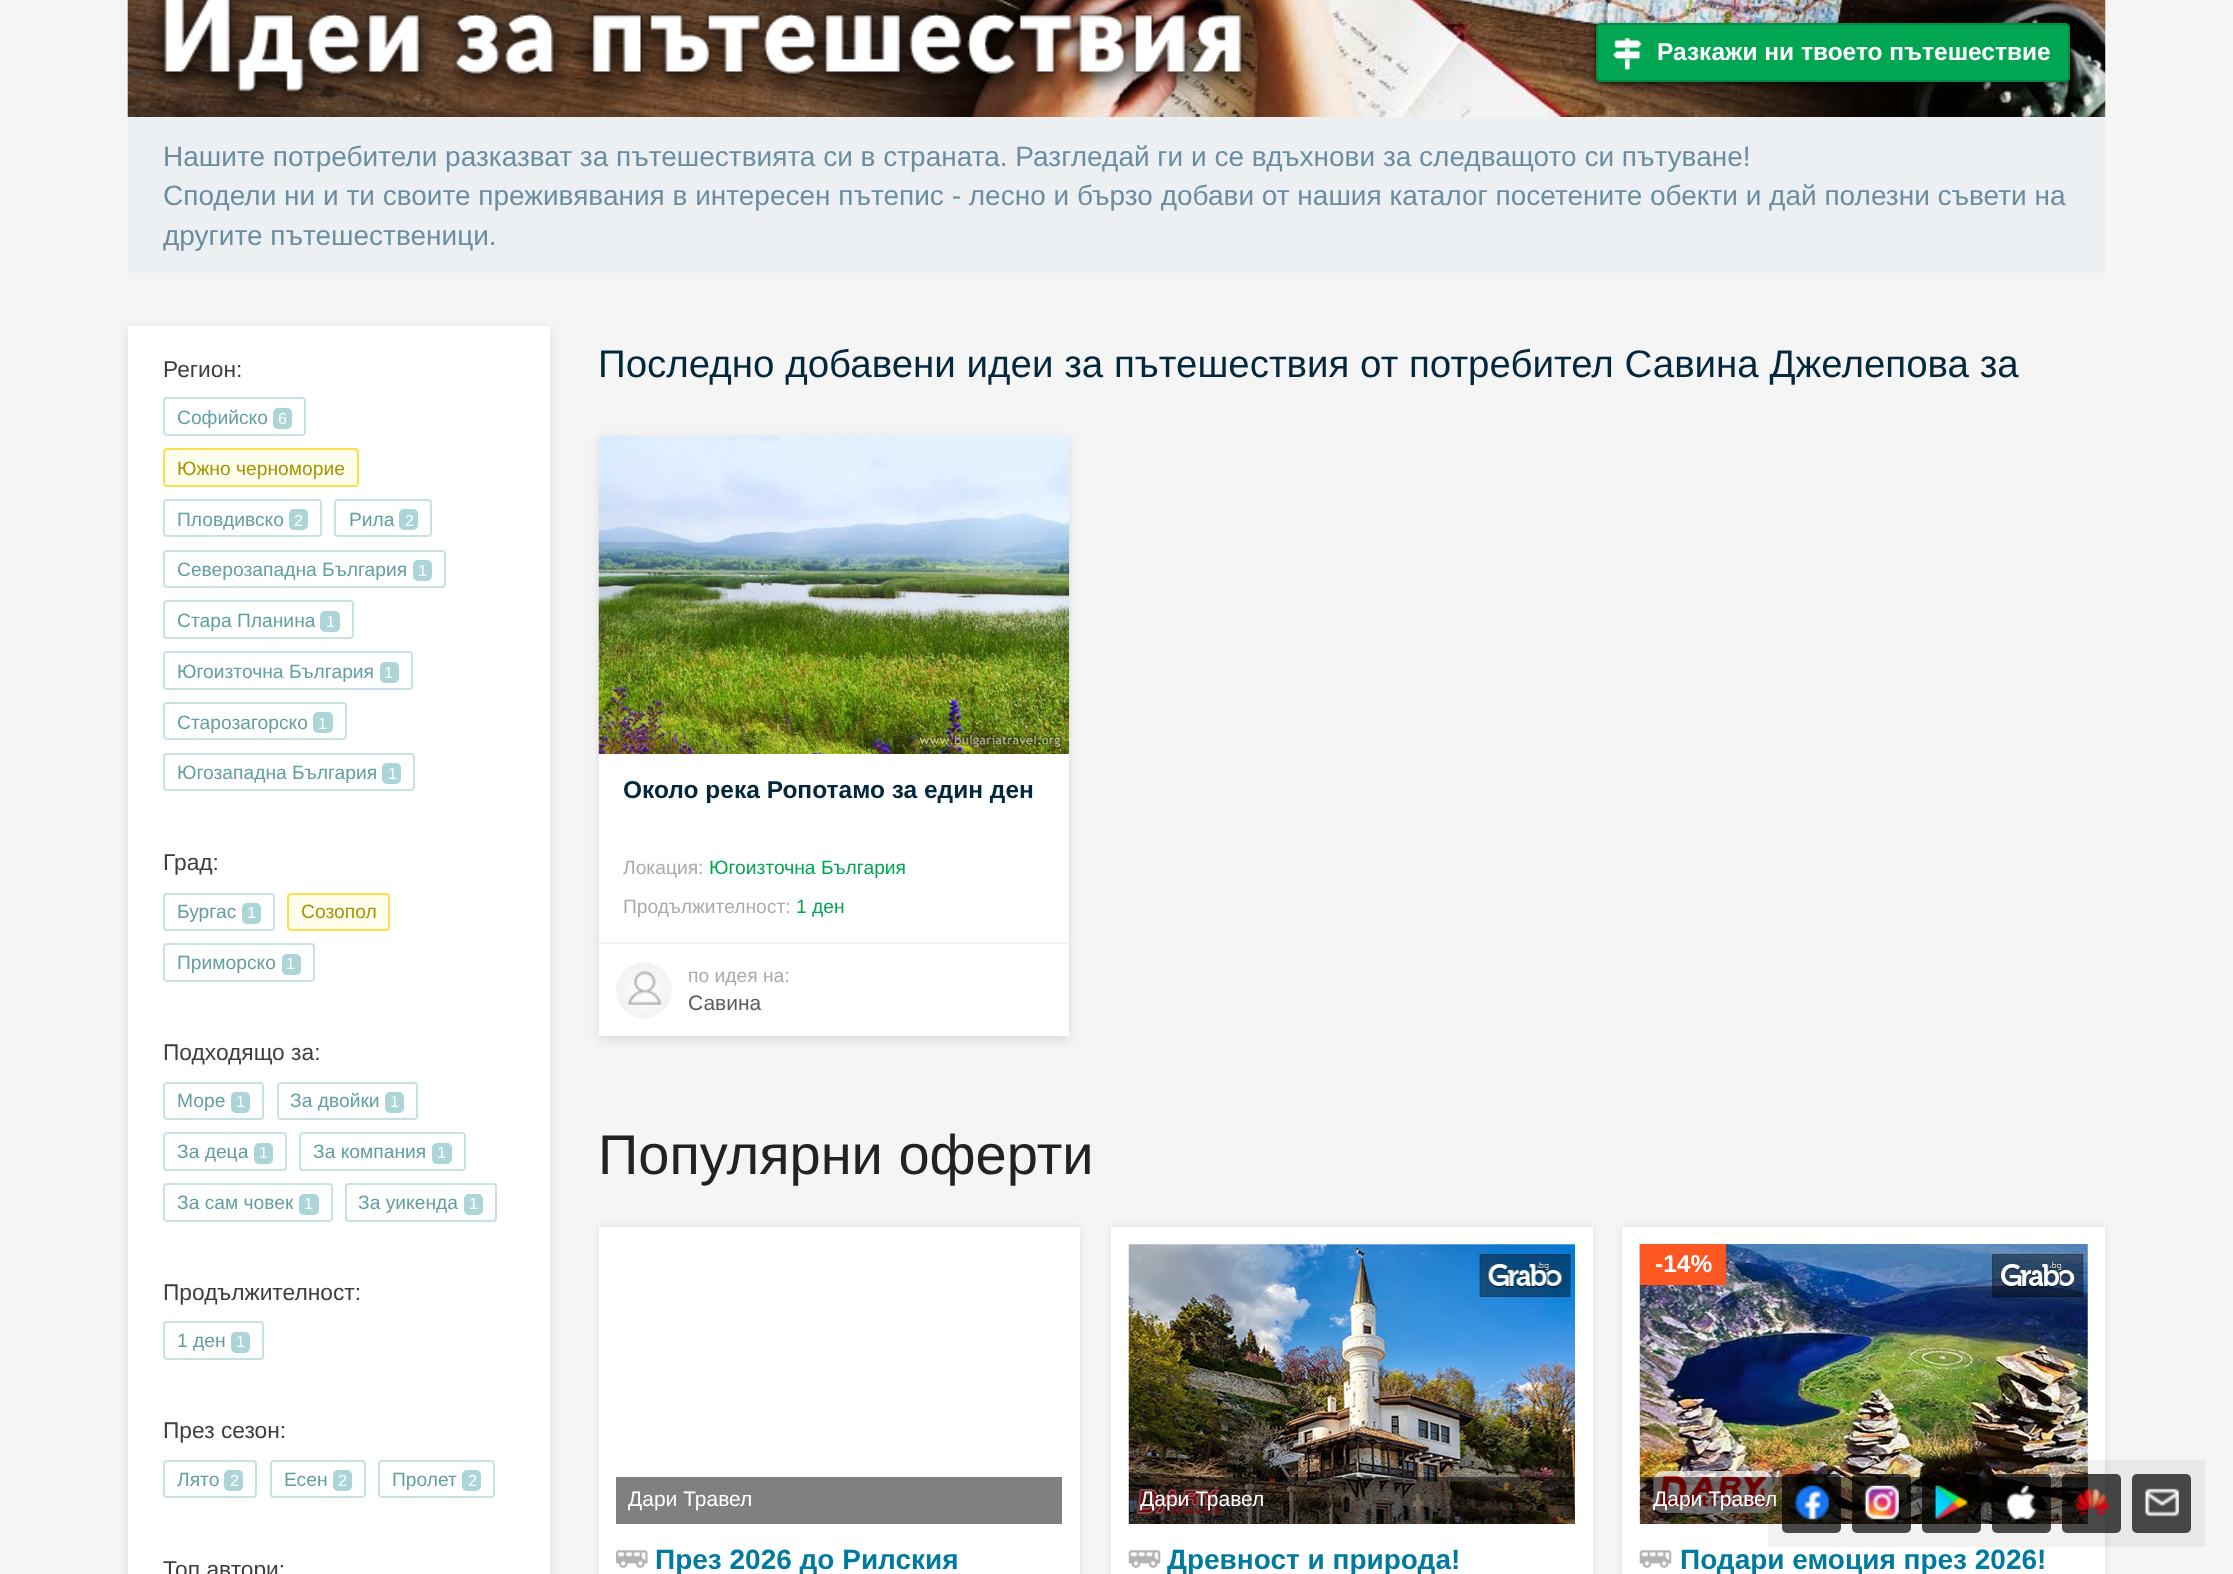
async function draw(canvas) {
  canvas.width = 2233
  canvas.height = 1574
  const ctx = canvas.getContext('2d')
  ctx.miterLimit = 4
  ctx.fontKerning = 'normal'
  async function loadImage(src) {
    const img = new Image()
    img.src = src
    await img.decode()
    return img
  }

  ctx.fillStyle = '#f5f5f5'
  ctx.fillRect(0, 0, 2233, 1574)
  ctx.drawImage(await loadImage('image0.png'), 127, 0, 1979, 117)
  ctx.drawImage(await loadImage('image1.png'), 150, 0, 1106, 109)
  ctx.fillStyle = '#00000099'
  ctx.filter = 'blur(2.5px)'
  ctx.beginPath()
  ctx.roundRect(1596, 25, 474, 59, 5)
  ctx.fill()
  ctx.filter = 'none'
  ctx.fillStyle = '#00a651'
  ctx.beginPath()
  ctx.roundRect(1596, 23, 474, 59, 5)
  ctx.fill()
  ctx.drawImage(await loadImage('image2.png'), 1613, 38, 29, 32)
  ctx.beginPath()
  ctx.roundRect(1597, 24, 472, 57, 4)
  ctx.strokeStyle = '#008c44'
  ctx.lineWidth = 2
  ctx.stroke()
  ctx.font = 'bold 24.5px Liberation Sans'
  ctx.fillStyle = '#fff'
  ctx.fillText('Разкажи ни твоето пътешествие', 1657, 60)
  ctx.fillStyle = '#ecf0f3'
  ctx.fillRect(128, 117, 1977, 156)
  ctx.font = '28px Liberation Sans'
  ctx.fillStyle = '#6b8da0'
  ctx.fillText('Нашите потребители разказват за пътешествията си в страната. Разгледай ги и се вдъхнови за следващото си пътуване!', 163, 166)
  ctx.fillText('Сподели ни и ти своите преживявания в интересен пътепис - лесно и бързо добави от нашия каталог посетените обекти и дай полезни съвети на', 163, 205)
  ctx.fillText('другите пътешественици.', 163, 245)
  ctx.fillStyle = '#0000001a'
  ctx.filter = 'blur(6px)'
  ctx.beginPath()
  ctx.rect(128, 329, 422, 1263)
  ctx.fill()
  ctx.filter = 'none'
  ctx.fillStyle = '#fff'
  ctx.fillRect(128, 326, 422, 1248)
  ctx.font = '22.75px Liberation Sans'
  ctx.fillStyle = '#3e3e3e'
  ctx.fillText('Регион:', 163, 377)
  ctx.beginPath()
  ctx.roundRect(164, 398, 141, 37, 3)
  ctx.strokeStyle = '#c7e2e2'
  ctx.stroke()
  ctx.font = '19.25px Liberation Sans'
  ctx.fillStyle = '#629fa0'
  ctx.fillText('Софийско', 177, 424)
  ctx.fillStyle = '#abd5d6'
  ctx.beginPath()
  ctx.roundRect(273, 408, 19, 21, 5)
  ctx.fill()
  ctx.font = '16px Liberation Sans'
  ctx.fillStyle = '#fff'
  ctx.fillText('6', 278, 424)
  ctx.fillStyle = '#fffdeb'
  ctx.beginPath()
  ctx.roundRect(164, 449, 194, 37, 3)
  ctx.fill()
  ctx.strokeStyle = '#ffde4d'
  ctx.stroke()
  ctx.font = '19.25px Liberation Sans'
  ctx.fillStyle = '#a59404'
  ctx.fillText('Южно черноморие', 177, 475)
  ctx.beginPath()
  ctx.roundRect(164, 500, 157, 36, 3)
  ctx.strokeStyle = '#c7e2e2'
  ctx.stroke()
  ctx.fillStyle = '#629fa0'
  ctx.fillText('Пловдивско', 177, 526)
  ctx.fillStyle = '#abd5d6'
  ctx.beginPath()
  ctx.roundRect(289, 509, 19, 21, 5)
  ctx.fill()
  ctx.font = '16px Liberation Sans'
  ctx.fillStyle = '#fff'
  ctx.fillText('2', 294, 526)
  ctx.beginPath()
  ctx.roundRect(335, 500, 96, 36, 3)
  ctx.stroke()
  ctx.font = '19.25px Liberation Sans'
  ctx.fillStyle = '#629fa0'
  ctx.fillText('Рила', 349, 526)
  ctx.fillStyle = '#abd5d6'
  ctx.beginPath()
  ctx.roundRect(399, 509, 19, 21, 5)
  ctx.fill()
  ctx.font = '16px Liberation Sans'
  ctx.fillStyle = '#fff'
  ctx.fillText('2', 405, 526)
  ctx.beginPath()
  ctx.roundRect(164, 551, 281, 36, 3)
  ctx.stroke()
  ctx.font = '19.25px Liberation Sans'
  ctx.fillStyle = '#629fa0'
  ctx.fillText('Северозападна България', 177, 576)
  ctx.fillStyle = '#abd5d6'
  ctx.beginPath()
  ctx.roundRect(413, 560, 19, 21, 5)
  ctx.fill()
  ctx.font = '16px Liberation Sans'
  ctx.fillStyle = '#fff'
  ctx.fillText('1', 418, 576)
  ctx.beginPath()
  ctx.roundRect(164, 601, 189, 37, 3)
  ctx.stroke()
  ctx.font = '19.25px Liberation Sans'
  ctx.fillStyle = '#629fa0'
  ctx.fillText('Стара Планина', 177, 627)
  ctx.fillStyle = '#abd5d6'
  ctx.beginPath()
  ctx.roundRect(320, 611, 20, 21, 5)
  ctx.fill()
  ctx.font = '16px Liberation Sans'
  ctx.fillStyle = '#fff'
  ctx.fillText('1', 326, 627)
  ctx.beginPath()
  ctx.roundRect(164, 652, 248, 37, 3)
  ctx.stroke()
  ctx.font = '19.25px Liberation Sans'
  ctx.fillStyle = '#629fa0'
  ctx.fillText('Югоизточна България', 177, 678)
  ctx.fillStyle = '#abd5d6'
  ctx.beginPath()
  ctx.roundRect(380, 662, 19, 21, 5)
  ctx.fill()
  ctx.font = '16px Liberation Sans'
  ctx.fillStyle = '#fff'
  ctx.fillText('1', 384, 678)
  ctx.beginPath()
  ctx.roundRect(164, 703, 182, 36, 3)
  ctx.stroke()
  ctx.font = '19.25px Liberation Sans'
  ctx.fillStyle = '#629fa0'
  ctx.fillText('Старозагорско', 177, 729)
  ctx.fillStyle = '#abd5d6'
  ctx.beginPath()
  ctx.roundRect(313, 712, 20, 21, 5)
  ctx.fill()
  ctx.font = '16px Liberation Sans'
  ctx.fillStyle = '#fff'
  ctx.fillText('1', 318, 729)
  ctx.beginPath()
  ctx.roundRect(164, 754, 250, 36, 3)
  ctx.stroke()
  ctx.font = '19.25px Liberation Sans'
  ctx.fillStyle = '#629fa0'
  ctx.fillText('Югозападна България', 177, 779)
  ctx.fillStyle = '#abd5d6'
  ctx.beginPath()
  ctx.roundRect(382, 763, 19, 21, 5)
  ctx.fill()
  ctx.font = '16px Liberation Sans'
  ctx.fillStyle = '#fff'
  ctx.fillText('1', 388, 779)
  ctx.font = '22.75px Liberation Sans'
  ctx.fillStyle = '#3e3e3e'
  ctx.fillText('Град:', 163, 870)
  ctx.beginPath()
  ctx.roundRect(164, 894, 110, 36, 3)
  ctx.stroke()
  ctx.font = '19.25px Liberation Sans'
  ctx.fillStyle = '#629fa0'
  ctx.fillText('Бургас', 177, 918)
  ctx.fillStyle = '#abd5d6'
  ctx.beginPath()
  ctx.roundRect(242, 903, 19, 21, 5)
  ctx.fill()
  ctx.font = '16px Liberation Sans'
  ctx.fillStyle = '#fff'
  ctx.fillText('1', 247, 918)
  ctx.fillStyle = '#fffdeb'
  ctx.beginPath()
  ctx.roundRect(288, 894, 101, 36, 3)
  ctx.fill()
  ctx.strokeStyle = '#ffde4d'
  ctx.stroke()
  ctx.font = '19.25px Liberation Sans'
  ctx.fillStyle = '#a59404'
  ctx.fillText('Созопол', 301, 918)
  ctx.beginPath()
  ctx.roundRect(164, 944, 150, 37, 3)
  ctx.strokeStyle = '#c7e2e2'
  ctx.stroke()
  ctx.fillStyle = '#629fa0'
  ctx.fillText('Приморско', 177, 969)
  ctx.fillStyle = '#abd5d6'
  ctx.beginPath()
  ctx.roundRect(282, 954, 19, 21, 5)
  ctx.fill()
  ctx.font = '16px Liberation Sans'
  ctx.fillStyle = '#fff'
  ctx.fillText('1', 286, 969)
  ctx.font = '22.75px Liberation Sans'
  ctx.fillStyle = '#3e3e3e'
  ctx.fillText('Подходящо за:', 163, 1060)
  ctx.beginPath()
  ctx.roundRect(164, 1083, 99, 36, 3)
  ctx.stroke()
  ctx.font = '19.25px Liberation Sans'
  ctx.fillStyle = '#629fa0'
  ctx.fillText('Море', 177, 1107)
  ctx.fillStyle = '#abd5d6'
  ctx.beginPath()
  ctx.roundRect(231, 1092, 19, 21, 5)
  ctx.fill()
  ctx.font = '16px Liberation Sans'
  ctx.fillStyle = '#fff'
  ctx.fillText('1', 236, 1107)
  ctx.beginPath()
  ctx.roundRect(278, 1083, 139, 36, 3)
  ctx.stroke()
  ctx.font = '19.25px Liberation Sans'
  ctx.fillStyle = '#629fa0'
  ctx.fillText('За двойки', 290, 1107)
  ctx.fillStyle = '#abd5d6'
  ctx.beginPath()
  ctx.roundRect(385, 1092, 19, 21, 5)
  ctx.fill()
  ctx.font = '16px Liberation Sans'
  ctx.fillStyle = '#fff'
  ctx.fillText('1', 390, 1107)
  ctx.beginPath()
  ctx.roundRect(164, 1133, 122, 37, 3)
  ctx.stroke()
  ctx.font = '19.25px Liberation Sans'
  ctx.fillStyle = '#629fa0'
  ctx.fillText('За деца', 177, 1158)
  ctx.fillStyle = '#abd5d6'
  ctx.beginPath()
  ctx.roundRect(254, 1143, 19, 21, 5)
  ctx.fill()
  ctx.font = '16px Liberation Sans'
  ctx.fillStyle = '#fff'
  ctx.fillText('1', 259, 1158)
  ctx.beginPath()
  ctx.roundRect(300, 1133, 165, 37, 3)
  ctx.stroke()
  ctx.font = '19.25px Liberation Sans'
  ctx.fillStyle = '#629fa0'
  ctx.fillText('За компания', 313, 1158)
  ctx.fillStyle = '#abd5d6'
  ctx.beginPath()
  ctx.roundRect(432, 1143, 20, 21, 5)
  ctx.fill()
  ctx.font = '16px Liberation Sans'
  ctx.fillStyle = '#fff'
  ctx.fillText('1', 437, 1158)
  ctx.beginPath()
  ctx.roundRect(164, 1184, 168, 37, 3)
  ctx.stroke()
  ctx.font = '19.25px Liberation Sans'
  ctx.fillStyle = '#629fa0'
  ctx.fillText('За сам човек', 177, 1209)
  ctx.fillStyle = '#abd5d6'
  ctx.beginPath()
  ctx.roundRect(299, 1194, 20, 21, 5)
  ctx.fill()
  ctx.font = '16px Liberation Sans'
  ctx.fillStyle = '#fff'
  ctx.fillText('1', 304, 1209)
  ctx.beginPath()
  ctx.roundRect(346, 1184, 150, 37, 3)
  ctx.stroke()
  ctx.font = '19.25px Liberation Sans'
  ctx.fillStyle = '#629fa0'
  ctx.fillText('За уикенда', 358, 1209)
  ctx.fillStyle = '#abd5d6'
  ctx.beginPath()
  ctx.roundRect(464, 1194, 19, 21, 5)
  ctx.fill()
  ctx.font = '16px Liberation Sans'
  ctx.fillStyle = '#fff'
  ctx.fillText('1', 469, 1209)
  ctx.font = '22.75px Liberation Sans'
  ctx.fillStyle = '#3e3e3e'
  ctx.fillText('Продължителност:', 163, 1300)
  ctx.beginPath()
  ctx.roundRect(164, 1322, 99, 37, 3)
  ctx.stroke()
  ctx.font = '19.25px Liberation Sans'
  ctx.fillStyle = '#629fa0'
  ctx.fillText('1 ден', 177, 1347)
  ctx.fillStyle = '#abd5d6'
  ctx.beginPath()
  ctx.roundRect(231, 1332, 19, 21, 5)
  ctx.fill()
  ctx.font = '16px Liberation Sans'
  ctx.fillStyle = '#fff'
  ctx.fillText('1', 236, 1347)
  ctx.font = '22.75px Liberation Sans'
  ctx.fillStyle = '#3e3e3e'
  ctx.fillText('През сезон:', 163, 1438)
  ctx.beginPath()
  ctx.roundRect(164, 1461, 92, 36, 3)
  ctx.stroke()
  ctx.font = '19.25px Liberation Sans'
  ctx.fillStyle = '#629fa0'
  ctx.fillText('Лято', 177, 1486)
  ctx.fillStyle = '#abd5d6'
  ctx.beginPath()
  ctx.roundRect(224, 1470, 19, 21, 5)
  ctx.fill()
  ctx.font = '16px Liberation Sans'
  ctx.fillStyle = '#fff'
  ctx.fillText('2', 230, 1486)
  ctx.beginPath()
  ctx.roundRect(271, 1461, 94, 36, 3)
  ctx.stroke()
  ctx.font = '19.25px Liberation Sans'
  ctx.fillStyle = '#629fa0'
  ctx.fillText('Есен', 284, 1486)
  ctx.fillStyle = '#abd5d6'
  ctx.beginPath()
  ctx.roundRect(333, 1470, 19, 21, 5)
  ctx.fill()
  ctx.font = '16px Liberation Sans'
  ctx.fillStyle = '#fff'
  ctx.fillText('2', 338, 1486)
  ctx.beginPath()
  ctx.roundRect(379, 1461, 115, 36, 3)
  ctx.stroke()
  ctx.font = '19.25px Liberation Sans'
  ctx.fillStyle = '#629fa0'
  ctx.fillText('Пролет', 392, 1486)
  ctx.fillStyle = '#abd5d6'
  ctx.beginPath()
  ctx.roundRect(462, 1470, 19, 21, 5)
  ctx.fill()
  ctx.font = '16px Liberation Sans'
  ctx.fillStyle = '#fff'
  ctx.fillText('2', 468, 1486)
  ctx.font = '22.75px Liberation Sans'
  ctx.fillStyle = '#3e3e3e'
  ctx.fillText('Топ автори:', 163, 1577)
  ctx.font = '38.5px Liberation Sans'
  ctx.fillStyle = '#03273d'
  ctx.fillText('Последно добавени идеи за пътешествия от потребител Савина Джелепова за', 598, 377)
  ctx.fillStyle = '#0000001a'
  ctx.filter = 'blur(6px)'
  ctx.beginPath()
  ctx.rect(599, 439, 470, 601)
  ctx.fill()
  ctx.filter = 'none'
  ctx.fillStyle = '#fff'
  ctx.fillRect(599, 754, 470, 282)
  ctx.drawImage(await loadImage('image3.png'), 598, 435, 472, 319)
  ctx.font = 'bold 24.5px Liberation Sans'
  ctx.fillStyle = '#03273d'
  ctx.fillText('Около река Ропотамо за един ден', 623, 798)
  ctx.font = '19.25px Liberation Sans'
  ctx.fillStyle = '#aaa'
  ctx.fillText('Локация:', 623, 874)
  ctx.fillStyle = '#00a651'
  ctx.fillText('Югоизточна България', 709, 874)
  ctx.fillStyle = '#aaa'
  ctx.fillText('Продължителност:', 623, 913)
  ctx.fillStyle = '#00a651'
  ctx.fillText('1 ден', 796, 913)
  ctx.fillStyle = '#f2f2f2'
  ctx.fillRect(599, 942, 470, 2)
  ctx.drawImage(await loadImage('image4.png'), 616, 962, 56, 56)
  ctx.fillStyle = '#aaa'
  ctx.fillText('по идея на:', 688, 982)
  ctx.font = '21px Liberation Sans'
  ctx.fillStyle = '#5d5d5d'
  ctx.fillText('Савина', 688, 1010)
  ctx.font = '56px Liberation Sans'
  ctx.fillStyle = '#222'
  ctx.fillText('Популярни оферти', 598, 1174)
  ctx.fillStyle = '#0000001a'
  ctx.filter = 'blur(3.5px)'
  ctx.beginPath()
  ctx.rect(599, 1227, 481, 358)
  ctx.fill()
  ctx.filter = 'none'
  ctx.fillStyle = '#fff'
  ctx.fillRect(599, 1227, 481, 347)
  ctx.fillStyle = '#808080'
  ctx.fillRect(616, 1477, 446, 47)
  ctx.font = '21px Liberation Sans'
  ctx.fillStyle = '#fff'
  ctx.fillText('Дари Травел', 628, 1506)
  ctx.drawImage(await loadImage('image5.png'), 616, 1550, 32, 18)
  ctx.font = 'bold 28px Liberation Sans'
  ctx.fillStyle = '#017aa0'
  ctx.fillText('През 2026 до Рилския', 655, 1569)
  ctx.fillStyle = '#0000001a'
  ctx.filter = 'blur(3.5px)'
  ctx.beginPath()
  ctx.rect(1111, 1227, 482, 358)
  ctx.fill()
  ctx.filter = 'none'
  ctx.fillStyle = '#fff'
  ctx.fillRect(1111, 1227, 482, 347)
  ctx.drawImage(await loadImage('image6.png'), 1128, 1244, 447, 280)
  ctx.fillStyle = '#00000080'
  ctx.fillRect(1129, 1477, 446, 47)
  ctx.font = '21px Liberation Sans'
  ctx.fillStyle = '#fff'
  ctx.fillText('Дари Травел', 1140, 1506)
  ctx.drawImage(await loadImage('image7.png'), 1128, 1550, 33, 18)
  ctx.font = 'bold 28px Liberation Sans'
  ctx.fillStyle = '#017aa0'
  ctx.fillText('Древност и природа!', 1167, 1569)
  ctx.fillStyle = '#0000001a'
  ctx.filter = 'blur(3.5px)'
  ctx.beginPath()
  ctx.rect(1622, 1227, 483, 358)
  ctx.fill()
  ctx.filter = 'none'
  ctx.fillStyle = '#fff'
  ctx.fillRect(1622, 1227, 483, 347)
  ctx.drawImage(await loadImage('image8.png'), 1639, 1244, 449, 280)
  ctx.fillStyle = '#ff5722'
  ctx.fillRect(1640, 1244, 86, 41)
  ctx.font = 'bold 24.5px Liberation Sans'
  ctx.fillStyle = '#fff'
  ctx.fillText('-14%', 1655, 1272)
  ctx.fillStyle = '#00000080'
  ctx.fillRect(1640, 1477, 448, 47)
  ctx.font = '21px Liberation Sans'
  ctx.fillStyle = '#fff'
  ctx.fillText('Дари Травел', 1653, 1506)
  ctx.drawImage(await loadImage('image7.png'), 1639, 1550, 33, 18)
  ctx.font = 'bold 28px Liberation Sans'
  ctx.fillStyle = '#017aa0'
  ctx.fillText('Подари емоция през 2026!', 1680, 1569)
  ctx.fillStyle = '#0000000d'
  ctx.fillRect(1768, 1460, 437, 87)
  ctx.fillStyle = '#000000b3'
  ctx.beginPath()
  ctx.roundRect(1782, 1474, 59, 59, 5)
  ctx.fill()
  ctx.drawImage(await loadImage('image9.png'), 1794, 1485, 35, 35)
  ctx.beginPath()
  ctx.roundRect(1852, 1474, 59, 59, 5)
  ctx.fill()
  ctx.drawImage(await loadImage('image10.png'), 1864, 1485, 35, 35)
  ctx.beginPath()
  ctx.roundRect(1922, 1474, 59, 59, 5)
  ctx.fill()
  ctx.drawImage(await loadImage('image11.png'), 1934, 1485, 34, 35)
  ctx.beginPath()
  ctx.roundRect(1992, 1474, 59, 59, 5)
  ctx.fill()
  ctx.drawImage(await loadImage('image12.png'), 2006, 1485, 30, 35)
  ctx.beginPath()
  ctx.roundRect(2062, 1474, 59, 59, 5)
  ctx.fill()
  ctx.drawImage(await loadImage('image13.png'), 2074, 1488, 35, 29)
  ctx.fillStyle = '#464646'
  ctx.beginPath()
  ctx.roundRect(2132, 1474, 59, 59, 5)
  ctx.fill()
  ctx.drawImage(await loadImage('image14.png'), 2144, 1488, 35, 29)
}

draw(document.querySelector('canvas'))
